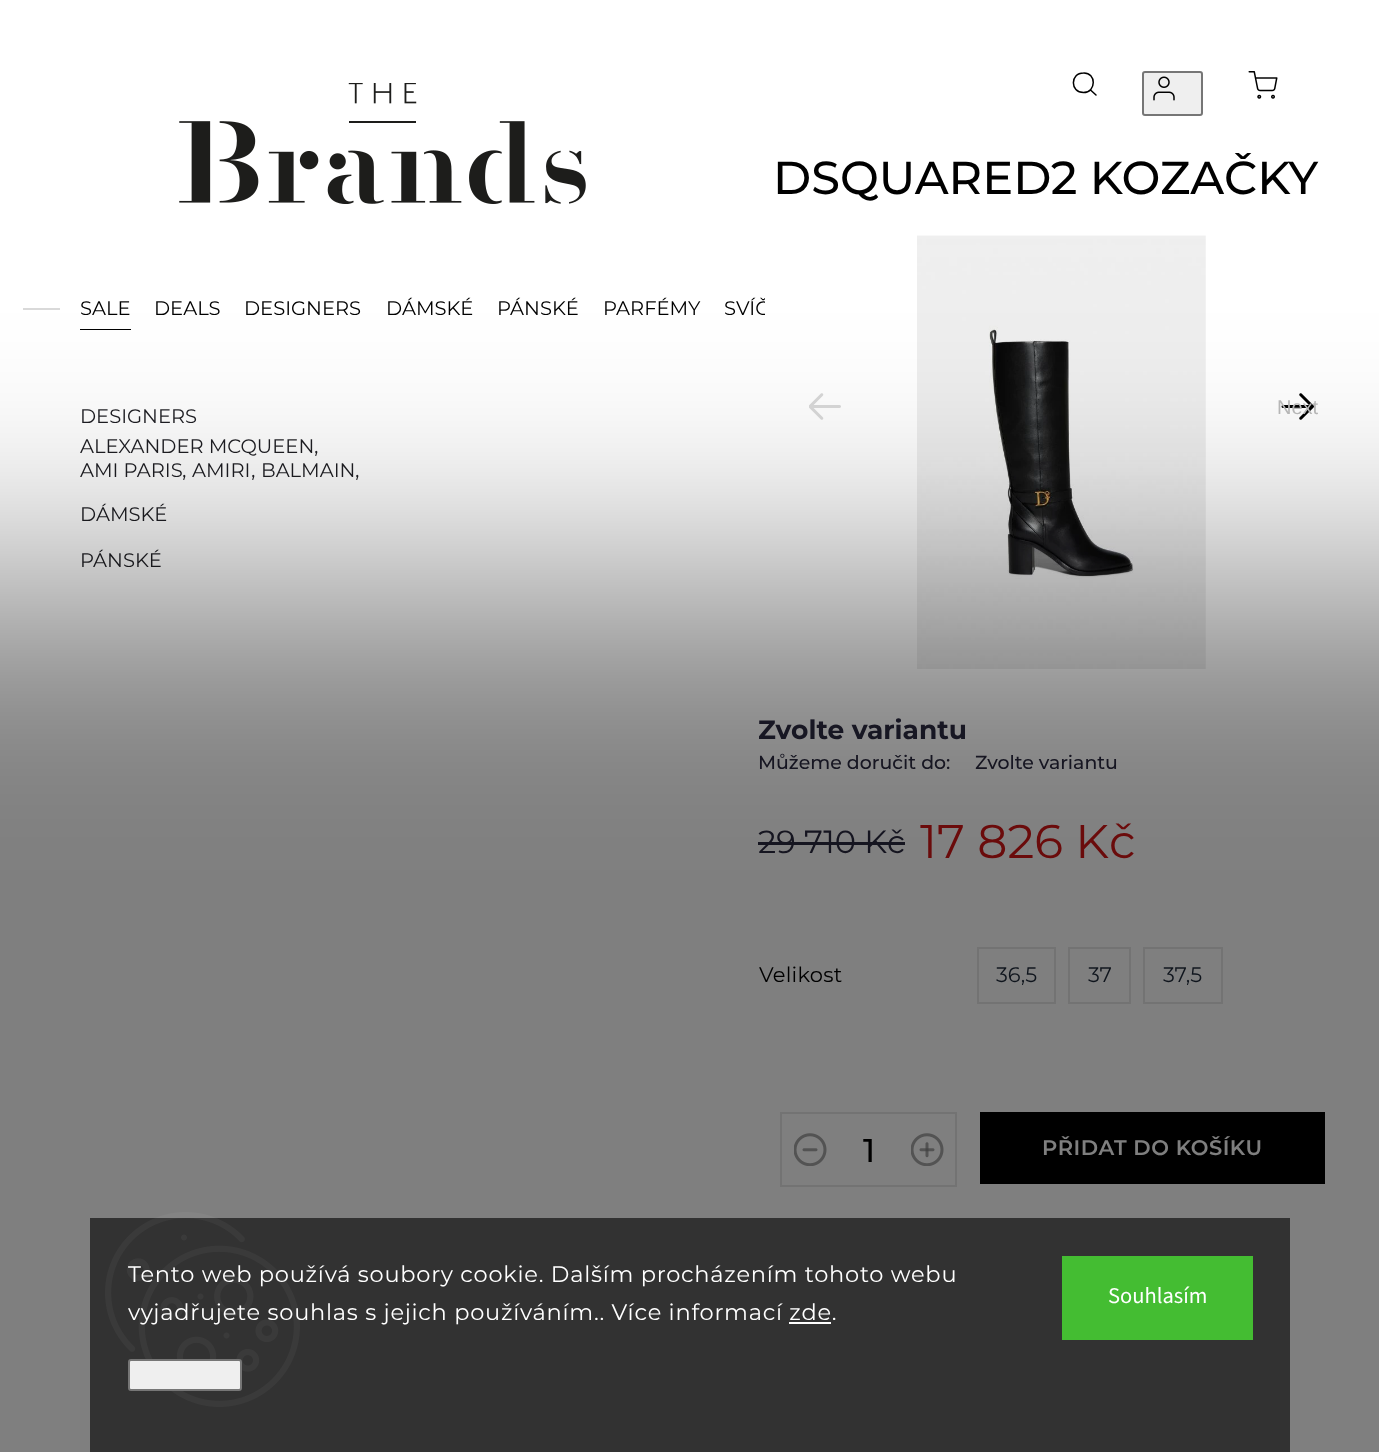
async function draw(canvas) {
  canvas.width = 1379
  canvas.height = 1452
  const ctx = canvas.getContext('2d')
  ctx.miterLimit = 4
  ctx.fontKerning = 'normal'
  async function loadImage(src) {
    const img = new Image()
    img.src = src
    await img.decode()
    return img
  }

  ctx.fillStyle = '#fff'
  ctx.fillRect(0, 0, 1379, 1452)
  ctx.fillStyle = '#efefef'
  ctx.beginPath()
  ctx.roundRect(1143, 72, 59, 43, 2)
  ctx.fill()
  ctx.strokeStyle = '#767676'
  ctx.lineWidth = 2
  ctx.stroke()
  ctx.drawImage(await loadImage('image0.png'), 1153, 76, 22, 25)
  ctx.drawImage(await loadImage('image1.png'), 179, 83, 407, 121)
  ctx.beginPath()
  ctx.moveTo(1083.5, 92.5)
  ctx.bezierCurveTo(1096.5, 92.5, 1096.5, 72.5, 1083.5, 73)
  ctx.bezierCurveTo(1070, 73, 1070, 92.5, 1083.5, 92.5)
  ctx.closePath()
  ctx.moveTo(1096, 95)
  ctx.lineTo(1090.5, 90)
  ctx.strokeStyle = '#000'
  ctx.lineWidth = 1.5
  ctx.lineCap = 'round'
  ctx.lineJoin = 'round'
  ctx.stroke()
  ctx.drawImage(await loadImage('image2.png'), 1248, 71, 30, 28)
  ctx.fillStyle = '#d9d9d9'
  ctx.fillRect(23, 308, 37, 2)
  ctx.font = '19.5px Montserrat'
  ctx.fillStyle = '#000'
  ctx.fillText('SALE', 80, 315)
  ctx.fillRect(80, 329, 51, 1)
  ctx.fillStyle = '#1e1e23'
  ctx.fillText('DESIGNERS', 80, 423)
  ctx.fillText('ALEXANDER MCQUEEN', 80, 453)
  ctx.font = '21px Montserrat'
  ctx.fillText(',', 314, 453)
  ctx.font = '19.5px Montserrat'
  ctx.fillText('AMI PARIS', 80, 477)
  ctx.font = '21px Montserrat'
  ctx.fillText(',', 182, 477)
  ctx.font = '19.5px Montserrat'
  ctx.fillText('AMIRI', 192, 477)
  ctx.font = '21px Montserrat'
  ctx.fillText(',', 251, 477)
  ctx.font = '19.5px Montserrat'
  ctx.fillText('BALMAIN', 261, 477)
  ctx.font = '21px Montserrat'
  ctx.fillText(',', 355, 477)
  ctx.font = '19.5px Montserrat'
  ctx.fillText('DÁMSKÉ', 80, 521)
  ctx.fillText('PÁNSKÉ', 80, 567)
  ctx.fillStyle = '#000'
  ctx.fillText('DÁMSKÉ', 386, 315)
  ctx.fillText('PÁNSKÉ', 497, 315)
  ctx.fillText('PARFÉMY', 603, 315)
  ctx.save()
  ctx.beginPath()
  ctx.rect(23, 270, 742, 1167)
  ctx.clip()
  ctx.fillText('SVÍČ', 724, 315)
  ctx.restore()
  ctx.fillText('DEALS', 154, 315)
  ctx.fillText('DESIGNERS', 244, 315)
  ctx.font = '500 46.25px Montserrat'
  ctx.fillText('DSQUARED2 KOZAČKY', 773, 194)
  ctx.drawImage(await loadImage('image3.png'), 809, 393, 32, 27)
  ctx.drawImage(await loadImage('image4.png'), 917, 235, 289, 434)
  ctx.drawImage(await loadImage('image5.png'), 1281, 393, 33, 27)
  ctx.font = '20px Liberation Sans'
  ctx.fillStyle = '#bcbcbc'
  ctx.fillText('Next', 1277, 414)
  ctx.font = 'bold 26.5px Montserrat'
  ctx.fillStyle = '#2b2a40'
  ctx.fillText('Zvolte variantu', 758, 739)
  ctx.font = '500 18.9px Montserrat'
  ctx.fillText('Můžeme doručit do:', 758, 769)
  ctx.fillText('Zvolte variantu', 975, 769)
  ctx.font = '32px Montserrat'
  ctx.fillText('29 710 Kč', 758, 853)
  ctx.fillRect(758, 842, 147, 3)
  ctx.font = '47.25px Montserrat'
  ctx.fillStyle = '#d31616'
  ctx.fillText('17 826 Kč', 920, 858)
  ctx.letterSpacing = '0.25px'
  ctx.font = '21px Montserrat'
  ctx.fillStyle = '#000'
  ctx.fillText('Velikost', 759, 982)
  ctx.strokeStyle = '#e6e6e6'
  ctx.lineWidth = 2
  ctx.lineJoin = 'miter'
  ctx.strokeRect(978, 948, 77, 55)
  ctx.letterSpacing = '0px'
  ctx.fillStyle = '#1f2a3a'
  ctx.fillText('36,5', 996, 982)
  ctx.strokeRect(1069, 948, 61, 55)
  ctx.fillText('37', 1088, 982)
  ctx.strokeRect(1144, 948, 78, 55)
  ctx.fillText('37,5', 1163, 982)
  ctx.strokeRect(781, 1113, 175, 73)
  ctx.drawImage(await loadImage('image6.png'), 794, 1133, 33, 33)
  ctx.font = '500 33px Montserrat'
  ctx.fillStyle = '#000'
  ctx.fillText('1', 863, 1162)
  ctx.drawImage(await loadImage('image7.png'), 911, 1133, 33, 33)
  ctx.fillRect(980, 1112, 345, 72)
  ctx.letterSpacing = '0.5px'
  ctx.font = '600 21px Montserrat'
  ctx.fillStyle = '#fff'
  ctx.fillText('PŘIDAT DO KOŠÍKU', 1042, 1155)
  ctx.fillStyle = '#00000080'
  ctx.filter = 'blur(120px)'
  ctx.beginPath()
  ctx.rect(-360, 588, 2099, 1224)
  ctx.fill()
  ctx.filter = 'none'
  ctx.fillStyle = '#323232'
  ctx.fillRect(90, 1218, 1200, 234)
  ctx.drawImage(await loadImage('image8.png'), 105, 1212, 195, 195)
  ctx.letterSpacing = '0.75px'
  ctx.font = '22.5px Montserrat'
  ctx.fillStyle = '#fff'
  ctx.fillText('Tento web používá soubory cookie. Dalším procházením tohoto webu', 128, 1282)
  ctx.fillText('vyjadřujete souhlas s jejich používáním.. Více informací zde.', 128, 1320)
  ctx.fillRect(789, 1322, 42, 2)
  ctx.fillStyle = '#efefef'
  ctx.beginPath()
  ctx.roundRect(129, 1360, 112, 30, 2)
  ctx.fill()
  ctx.strokeStyle = '#767676'
  ctx.stroke()
  ctx.fillStyle = '#44bd32'
  ctx.fillRect(1062, 1256, 191, 84)
  ctx.letterSpacing = '0px'
  ctx.font = '22.5px "Source Sans 3"'
  ctx.fillStyle = '#fff'
  ctx.fillText('Souhlasím', 1108, 1303)
}

draw(document.querySelector('canvas'))
